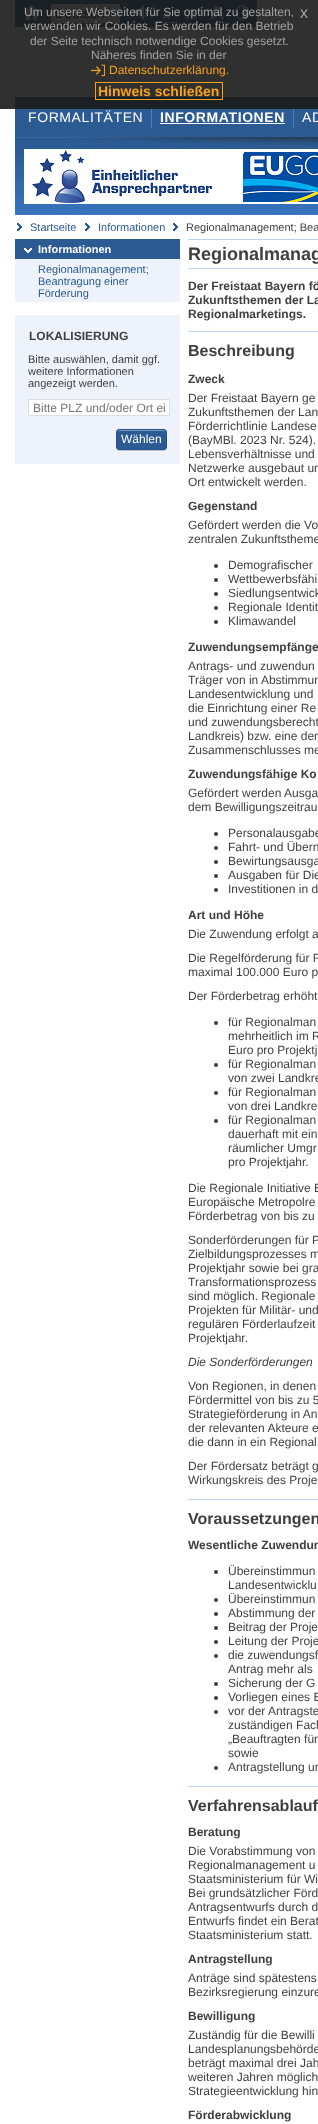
async function draw(canvas) {
  canvas.width = 318
  canvas.height = 2124
  const ctx = canvas.getContext('2d')
  ctx.miterLimit = 4
  ctx.fontKerning = 'normal'
  async function loadImage(src) {
    const img = new Image()
    img.src = src
    await img.decode()
    return img
  }

  ctx.fillStyle = '#fff'
  ctx.fillRect(0, 0, 318, 2124)
  ctx.fillStyle = '#303030'
  ctx.fillRect(0, 0, 318, 109)
  ctx.fillStyle = '#1b2025'
  ctx.fillRect(15, 0, 242, 27)
  ctx.fillStyle = '#1d232b'
  ctx.fillRect(43, 3, 1, 19)
  ctx.drawImage(await loadImage('image1.png'), 24, 5, 15, 15)
  ctx.fillRect(126, 3, 1, 19)
  ctx.fillStyle = '#303030'
  ctx.fillRect(51, 4, 69, 19)
  ctx.beginPath()
  ctx.moveTo(107.5, 11.5)
  ctx.lineTo(111.5, 15.5)
  ctx.lineTo(115.5, 11.5)
  ctx.strokeStyle = '#171717'
  ctx.lineWidth = 2
  ctx.stroke()
  ctx.font = '13.5px Liberation Sans'
  ctx.fillStyle = '#171717'
  ctx.fillText('Deutsch', 55, 18)
  ctx.fillStyle = '#1d232b'
  ctx.fillRect(152, 3, 1, 19)
  ctx.drawImage(await loadImage('image2.png'), 133, 5, 15, 15)
  ctx.drawImage(await loadImage('image3.png'), 163, 12, 7, 7)
  ctx.drawImage(await loadImage('image4.png'), 186, 9, 11, 10)
  ctx.fillRect(228, 3, 1, 19)
  ctx.drawImage(await loadImage('image5.png'), 210, 6, 14, 13)
  ctx.drawImage(await loadImage('image6.png'), 235, 5, 15, 15)
  ctx.font = '12px Liberation Sans'
  ctx.fillStyle = '#a2a2a2'
  ctx.fillText('Um unsere Webseiten für Sie optimal zu gestalten,', 24, 16)
  ctx.fillStyle = '#303030'
  ctx.fillRect(153, 22, 25, 1)
  ctx.fillStyle = '#a2a2a2'
  ctx.fillText('verwenden wir Cookies. Es werden für den Betrieb', 24, 30)
  ctx.fillText('der Seite technisch notwendige Cookies gesetzt.', 30, 45)
  ctx.fillText('Näheres finden Sie in der', 91, 59)
  ctx.drawImage(await loadImage('image0.png'), 90, 64, 15, 13)
  ctx.fillStyle = '#f6a21d'
  ctx.fillText('Datenschutzerklärung.', 109, 74)
  ctx.font = '16px Liberation Sans'
  ctx.fillStyle = '#a2a2a2'
  ctx.fillText('x', 300, 18)
  ctx.fillStyle = '#1b2025'
  ctx.fillRect(15, 97, 303, 12)
  ctx.strokeStyle = '#f6a21d'
  ctx.lineWidth = 1
  ctx.strokeRect(95.5, 82.5, 127, 17)
  ctx.font = 'bold 14px Liberation Sans'
  ctx.fillStyle = '#f6a21d'
  ctx.fillText('Hinweis schließen', 98, 96)
  ctx.fillStyle = '#2c5a93'
  ctx.fillRect(15, 109, 303, 28)
  ctx.fillStyle = '#417ecd'
  ctx.fillRect(151, 106, 1, 22)
  ctx.fillStyle = '#1d232b'
  ctx.fillRect(151, 106, 1, 3)
  ctx.letterSpacing = '0.6px'
  ctx.font = '14px Liberation Sans'
  ctx.fillStyle = '#fff'
  ctx.fillText('FORMALITÄTEN', 28, 122)
  ctx.fillStyle = '#417ecd'
  ctx.fillRect(293, 106, 1, 22)
  ctx.fillStyle = '#1d232b'
  ctx.fillRect(293, 106, 1, 3)
  ctx.font = 'bold 14px Liberation Sans'
  ctx.fillStyle = '#fff'
  ctx.fillText('INFORMATIONEN', 160, 122)
  ctx.fillRect(160, 123, 125, 1)
  ctx.font = '14px Liberation Sans'
  ctx.fillText('AD', 302, 122)
  ctx.drawImage(await loadImage('image7.png'), 15, 137, 303, 78)
  ctx.drawImage(await loadImage('image8.png'), 17, 223, 5, 8)
  ctx.letterSpacing = '0px'
  ctx.font = '11px Liberation Sans'
  ctx.fillStyle = '#2c5a93'
  ctx.fillText('Startseite', 30, 231)
  ctx.drawImage(await loadImage('image8.png'), 85, 223, 5, 8)
  ctx.fillText('Informationen', 98, 231)
  ctx.drawImage(await loadImage('image8.png'), 173, 223, 5, 8)
  ctx.fillStyle = '#3f3f3f'
  ctx.fillText('Regionalmanagement; Bea', 186, 231)
  ctx.fillStyle = '#2c5a93'
  ctx.fillRect(15, 239, 165, 20)
  ctx.drawImage(await loadImage('image9.png'), 24, 248, 8, 5)
  ctx.font = 'bold 11px Liberation Sans'
  ctx.fillStyle = '#fff'
  ctx.fillText('Informationen', 38, 253)
  ctx.fillStyle = '#eef3fb'
  ctx.fillRect(15, 259, 165, 43)
  ctx.font = '11px Liberation Sans'
  ctx.fillStyle = '#2c5a93'
  ctx.fillText('Regionalmanagement;', 38, 273)
  ctx.fillText('Beantragung einer', 38, 285)
  ctx.fillText('Förderung', 38, 297)
  ctx.fillStyle = '#eef3fb'
  ctx.fillRect(15, 315, 165, 149)
  ctx.font = 'bold 12px Liberation Sans'
  ctx.fillStyle = '#3f3f3f'
  ctx.fillText('LOKALISIERUNG', 29, 340)
  ctx.font = '11px Liberation Sans'
  ctx.fillText('Bitte auswählen, damit ggf.', 28, 363)
  ctx.fillText('weitere Informationen', 28, 375)
  ctx.fillText('angezeigt werden.', 28, 387)
  ctx.fillStyle = '#fff'
  ctx.beginPath()
  ctx.rect(28.5, 399.5, 141, 16)
  ctx.fill()
  ctx.strokeStyle = '#ddd'
  ctx.stroke()
  ctx.font = '12px Liberation Sans'
  ctx.fillStyle = '#757575'
  ctx.fillText('Bitte PLZ und/oder Ort ei', 33, 412)
  ctx.fillStyle = '#00000033'
  ctx.filter = 'blur(0.5px)'
  ctx.beginPath()
  ctx.roundRect(116, 430, 51, 21, 4)
  ctx.fill()
  ctx.filter = 'none'
  ctx.fillStyle = '#2c5a93'
  ctx.beginPath()
  ctx.roundRect(116, 429, 51, 21, 4)
  ctx.fill()
  ctx.fillStyle = '#809cbe'
  ctx.beginPath()
  ctx.moveTo(120, 431)
  ctx.lineTo(163, 431)
  ctx.bezierCurveTo(165, 431, 166, 432, 166, 434)
  ctx.bezierCurveTo(166, 428, 160, 430, 156, 430)
  ctx.lineTo(127, 430)
  ctx.bezierCurveTo(123, 430, 117, 428, 117, 434)
  ctx.bezierCurveTo(117, 432, 118, 431, 120, 431)
  ctx.closePath()
  ctx.fill()
  ctx.beginPath()
  ctx.roundRect(116.5, 429.5, 50, 20, 3.5)
  ctx.strokeStyle = '#20538d'
  ctx.stroke()
  ctx.fillStyle = '#fff'
  ctx.fillText('Wählen', 121, 443)
  ctx.fillStyle = '#bbd3ef'
  ctx.fillRect(188, 239, 130, 1)
  ctx.fillRect(188, 268, 130, 1)
  ctx.font = 'bold 18px Liberation Sans'
  ctx.fillStyle = '#3f3f3f'
  ctx.fillText('Regionalmanag', 188, 260)
  ctx.fillStyle = '#bbd3ef'
  ctx.fillRect(188, 331, 130, 1)
  ctx.font = 'bold 12px Liberation Sans'
  ctx.fillStyle = '#3f3f3f'
  ctx.fillText('Der Freistaat Bayern fö', 188, 290)
  ctx.fillText('Zukunftsthemen der La', 188, 304)
  ctx.fillText('Regionalmarketings.', 188, 318)
  ctx.fillStyle = '#bbd3ef'
  ctx.fillRect(188, 1499, 130, 1)
  ctx.font = 'bold 16px Liberation Sans'
  ctx.fillStyle = '#3f3f3f'
  ctx.fillText('Beschreibung', 188, 356)
  ctx.font = 'bold 12px Liberation Sans'
  ctx.fillText('Zweck', 188, 383)
  ctx.font = '12px Liberation Sans'
  ctx.fillText('Der Freistaat Bayern ge', 188, 402)
  ctx.fillText('Zukunftsthemen der Lan', 188, 416)
  ctx.fillText('Förderrichtlinie Landese', 188, 430)
  ctx.fillText('(BayMBl. 2023 Nr. 524).', 188, 444)
  ctx.fillText('Lebensverhältnisse und', 188, 458)
  ctx.fillText('Netzwerke ausgebaut un', 188, 472)
  ctx.fillText('Ort entwickelt werden.', 188, 486)
  ctx.font = 'bold 12px Liberation Sans'
  ctx.fillText('Gegenstand', 188, 510)
  ctx.font = '12px Liberation Sans'
  ctx.fillText('Gefördert werden die Vo', 188, 529)
  ctx.fillText('zentralen Zukunftstheme', 188, 543)
  ctx.beginPath()
  ctx.arc(216, 566, 2, 0, 2 * Math.PI)
  ctx.fill()
  ctx.fillText('Demografischer', 228, 569)
  ctx.beginPath()
  ctx.arc(216, 580, 2, 0, 2 * Math.PI)
  ctx.fill()
  ctx.fillText('Wettbewerbsfähi', 228, 583)
  ctx.beginPath()
  ctx.arc(216, 594, 2, 0, 2 * Math.PI)
  ctx.fill()
  ctx.fillText('Siedlungsentwick', 228, 597)
  ctx.beginPath()
  ctx.arc(216, 608, 2, 0, 2 * Math.PI)
  ctx.fill()
  ctx.fillText('Regionale Identit', 228, 611)
  ctx.beginPath()
  ctx.arc(216, 622, 2, 0, 2 * Math.PI)
  ctx.fill()
  ctx.fillText('Klimawandel', 228, 625)
  ctx.font = 'bold 12px Liberation Sans'
  ctx.fillText('Zuwendungsempfänge', 188, 651)
  ctx.font = '12px Liberation Sans'
  ctx.fillText('Antrags- und zuwendun', 188, 670)
  ctx.fillText('Träger von in Abstimmun', 188, 684)
  ctx.fillText('Landesentwicklung und', 188, 698)
  ctx.fillText('die Einrichtung einer Re', 188, 712)
  ctx.fillText('und zuwendungsberecht', 188, 726)
  ctx.fillText('Landkreis) bzw. eine der', 188, 740)
  ctx.fillText('Zusammenschlusses me', 188, 754)
  ctx.font = 'bold 12px Liberation Sans'
  ctx.fillText('Zuwendungsfähige Ko', 188, 778)
  ctx.font = '12px Liberation Sans'
  ctx.fillText('Gefördert werden Ausga', 188, 797)
  ctx.fillText('dem Bewilligungszeitrau', 188, 811)
  ctx.beginPath()
  ctx.arc(216, 834, 2, 0, 2 * Math.PI)
  ctx.fill()
  ctx.fillText('Personalausgabe', 228, 837)
  ctx.beginPath()
  ctx.arc(216, 848, 2, 0, 2 * Math.PI)
  ctx.fill()
  ctx.fillText('Fahrt- und Übern', 228, 851)
  ctx.beginPath()
  ctx.arc(216, 862, 2, 0, 2 * Math.PI)
  ctx.fill()
  ctx.fillText('Bewirtungsausga', 228, 865)
  ctx.beginPath()
  ctx.arc(216, 876, 2, 0, 2 * Math.PI)
  ctx.fill()
  ctx.fillText('Ausgaben für Die', 228, 879)
  ctx.beginPath()
  ctx.arc(216, 890, 2, 0, 2 * Math.PI)
  ctx.fill()
  ctx.fillText('Investitionen in d', 228, 893)
  ctx.font = 'bold 12px Liberation Sans'
  ctx.fillText('Art und Höhe', 188, 919)
  ctx.font = '12px Liberation Sans'
  ctx.fillText('Die Zuwendung erfolgt a', 188, 938)
  ctx.fillText('Die Regelförderung für R', 188, 962)
  ctx.fillText('maximal 100.000 Euro p', 188, 976)
  ctx.fillText('Der Förderbetrag erhöht', 188, 1000)
  ctx.beginPath()
  ctx.arc(216, 1023, 2, 0, 2 * Math.PI)
  ctx.fill()
  ctx.fillText('für Regionalman', 228, 1026)
  ctx.fillText('mehrheitlich im R', 228, 1040)
  ctx.fillText('Euro pro Projektj', 228, 1054)
  ctx.beginPath()
  ctx.arc(216, 1065, 2, 0, 2 * Math.PI)
  ctx.fill()
  ctx.fillText('für Regionalman', 228, 1068)
  ctx.fillText('von zwei Landkre', 228, 1082)
  ctx.beginPath()
  ctx.arc(216, 1093, 2, 0, 2 * Math.PI)
  ctx.fill()
  ctx.fillText('für Regionalman', 228, 1096)
  ctx.fillText('von drei Landkre', 228, 1110)
  ctx.beginPath()
  ctx.arc(216, 1121, 2, 0, 2 * Math.PI)
  ctx.fill()
  ctx.fillText('für Regionalman', 228, 1124)
  ctx.fillText('dauerhaft mit ein', 228, 1138)
  ctx.fillText('räumlicher Umgr', 228, 1152)
  ctx.fillText('pro Projektjahr.', 228, 1166)
  ctx.fillText('Die Regionale Initiative E', 188, 1192)
  ctx.fillText('Europäische Metropolre', 188, 1206)
  ctx.fillText('Förderbetrag von bis zu', 188, 1220)
  ctx.fillText('Sonderförderungen für P', 188, 1244)
  ctx.fillText('Zielbildungsprozesses m', 188, 1258)
  ctx.fillText('Projektjahr sowie bei gra', 188, 1272)
  ctx.fillText('Transformationsprozess', 188, 1286)
  ctx.fillText('sind möglich. Regionale', 188, 1300)
  ctx.fillText('Projekten für Militär- und', 188, 1314)
  ctx.fillText('regulären Förderlaufzeit', 188, 1328)
  ctx.fillText('Projektjahr.', 188, 1342)
  ctx.font = 'italic 12px Liberation Sans'
  ctx.fillText('Die Sonderförderungen', 188, 1366)
  ctx.font = '12px Liberation Sans'
  ctx.fillText('Von Regionen, in denen', 188, 1390)
  ctx.fillText('Fördermittel von bis zu 5', 188, 1404)
  ctx.fillText('Strategieförderung in An', 188, 1418)
  ctx.fillText('der relevanten Akteure e', 188, 1432)
  ctx.fillText('die dann in ein Regional', 188, 1446)
  ctx.fillText('Der Fördersatz beträgt g', 188, 1470)
  ctx.fillText('Wirkungskreis des Proje', 188, 1484)
  ctx.fillStyle = '#bbd3ef'
  ctx.fillRect(188, 1786, 130, 1)
  ctx.font = 'bold 16px Liberation Sans'
  ctx.fillStyle = '#3f3f3f'
  ctx.fillText('Voraussetzungen', 188, 1524)
  ctx.font = 'bold 12px Liberation Sans'
  ctx.fillText('Wesentliche Zuwendun', 188, 1549)
  ctx.beginPath()
  ctx.arc(216, 1572, 2, 0, 2 * Math.PI)
  ctx.fill()
  ctx.font = '12px Liberation Sans'
  ctx.fillText('Übereinstimmun', 228, 1575)
  ctx.fillText('Landesentwicklu', 228, 1589)
  ctx.beginPath()
  ctx.arc(216, 1600, 2, 0, 2 * Math.PI)
  ctx.fill()
  ctx.fillText('Übereinstimmun', 228, 1603)
  ctx.beginPath()
  ctx.arc(216, 1614, 2, 0, 2 * Math.PI)
  ctx.fill()
  ctx.fillText('Abstimmung der', 228, 1617)
  ctx.beginPath()
  ctx.arc(216, 1628, 2, 0, 2 * Math.PI)
  ctx.fill()
  ctx.fillText('Beitrag der Proje', 228, 1631)
  ctx.beginPath()
  ctx.arc(216, 1642, 2, 0, 2 * Math.PI)
  ctx.fill()
  ctx.fillText('Leitung der Proje', 228, 1645)
  ctx.beginPath()
  ctx.arc(216, 1656, 2, 0, 2 * Math.PI)
  ctx.fill()
  ctx.fillText('die zuwendungsf', 228, 1659)
  ctx.fillText('Antrag mehr als', 228, 1673)
  ctx.beginPath()
  ctx.arc(216, 1684, 2, 0, 2 * Math.PI)
  ctx.fill()
  ctx.fillText('Sicherung der G', 228, 1687)
  ctx.beginPath()
  ctx.arc(216, 1698, 2, 0, 2 * Math.PI)
  ctx.fill()
  ctx.fillText('Vorliegen eines E', 228, 1701)
  ctx.beginPath()
  ctx.arc(216, 1712, 2, 0, 2 * Math.PI)
  ctx.fill()
  ctx.fillText('vor der Antragste', 228, 1715)
  ctx.fillText('zuständigen Fach', 228, 1729)
  ctx.fillText('„Beauftragten für', 228, 1743)
  ctx.fillText('sowie', 228, 1757)
  ctx.beginPath()
  ctx.arc(216, 1768, 2, 0, 2 * Math.PI)
  ctx.fill()
  ctx.fillText('Antragstellung un', 228, 1771)
  ctx.font = 'bold 16px Liberation Sans'
  ctx.fillText('Verfahrensablauf', 188, 1811)
  ctx.font = 'bold 12px Liberation Sans'
  ctx.fillText('Beratung', 188, 1836)
  ctx.font = '12px Liberation Sans'
  ctx.fillText('Die Vorabstimmung von', 188, 1855)
  ctx.fillText('Regionalmanagement u', 188, 1869)
  ctx.fillText('Staatsministerium für Wi', 188, 1883)
  ctx.fillText('Bei grundsätzlicher Förd', 188, 1897)
  ctx.fillText('Antragsentwurfs durch d', 188, 1911)
  ctx.fillText('Entwurfs findet ein Berat', 188, 1925)
  ctx.fillText('Staatsministerium statt.', 188, 1939)
  ctx.font = 'bold 12px Liberation Sans'
  ctx.fillText('Antragstellung', 188, 1963)
  ctx.font = '12px Liberation Sans'
  ctx.fillText('Anträge sind spätestens', 188, 1982)
  ctx.fillText('Bezirksregierung einzure', 188, 1996)
  ctx.font = 'bold 12px Liberation Sans'
  ctx.fillText('Bewilligung', 188, 2020)
  ctx.font = '12px Liberation Sans'
  ctx.fillText('Zuständig für die Bewilli', 188, 2039)
  ctx.fillText('Landesplanungsbehörde', 188, 2053)
  ctx.fillText('beträgt maximal drei Jah', 188, 2067)
  ctx.fillText('weiteren Jahren möglich', 188, 2081)
  ctx.fillText('Strategieentwicklung hin', 188, 2095)
  ctx.font = 'bold 12px Liberation Sans'
  ctx.fillText('Förderabwicklung', 188, 2119)
}

draw(document.querySelector('canvas'))
